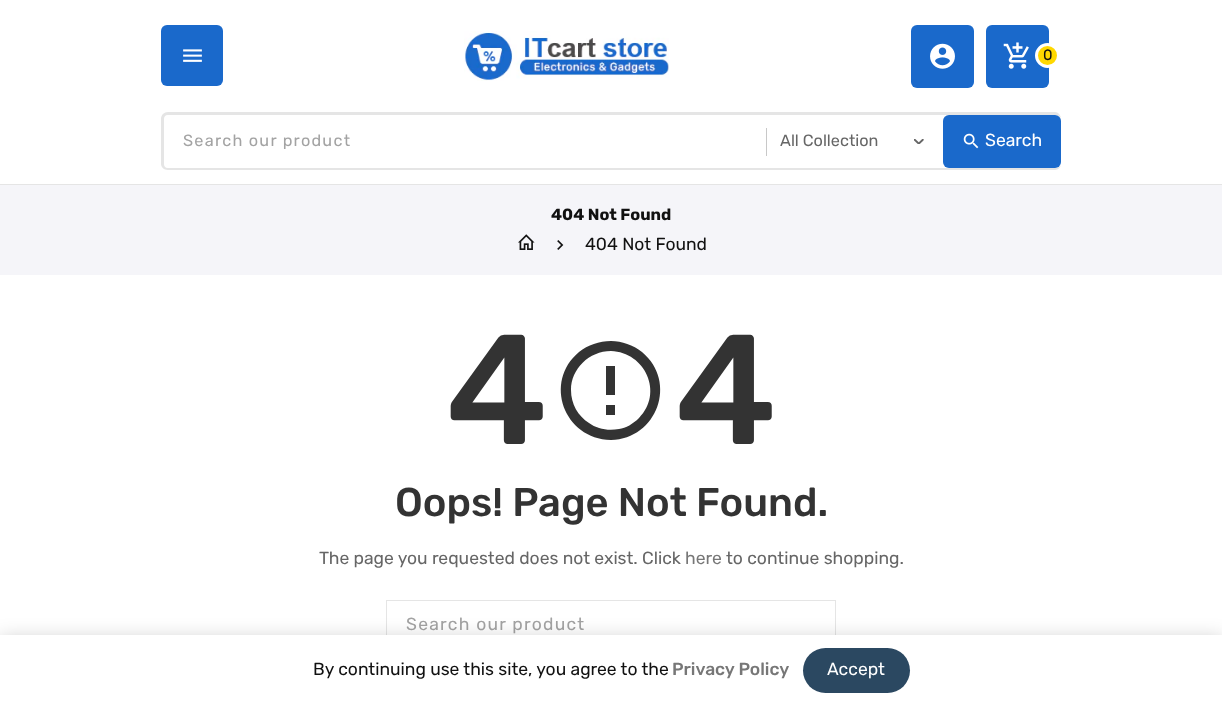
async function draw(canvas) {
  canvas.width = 1222
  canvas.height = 705
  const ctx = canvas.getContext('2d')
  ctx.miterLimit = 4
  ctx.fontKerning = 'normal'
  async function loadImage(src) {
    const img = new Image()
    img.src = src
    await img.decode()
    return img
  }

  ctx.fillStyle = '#fff'
  ctx.fillRect(0, 0, 1222, 705)
  ctx.fillStyle = '#e5e5e5'
  ctx.fillRect(0, 184, 1222, 1)
  ctx.fillStyle = '#1a69cb'
  ctx.beginPath()
  ctx.roundRect(161, 25, 62, 61, 6)
  ctx.fill()
  ctx.drawImage(await loadImage('image0.png'), 183, 49, 19, 13)
  ctx.drawImage(await loadImage('image1.png'), 464, 31, 205, 50)
  ctx.beginPath()
  ctx.roundRect(911, 25, 63, 63, 6)
  ctx.fill()
  ctx.drawImage(await loadImage('image2.png'), 930, 43, 25, 26)
  ctx.beginPath()
  ctx.roundRect(986, 25, 63, 63, 6)
  ctx.fill()
  ctx.drawImage(await loadImage('image3.png'), 1003, 42, 26, 27)
  ctx.fillStyle = '#ffd800'
  ctx.beginPath()
  ctx.arc(1047.5, 55.5, 11, 0, 2 * Math.PI)
  ctx.fill()
  ctx.strokeStyle = '#fff'
  ctx.lineWidth = 3
  ctx.stroke()
  ctx.font = '15px Rubik'
  ctx.fillStyle = '#111'
  ctx.fillText('0', 1043, 60)
  ctx.fillStyle = '#e5e5e5'
  ctx.beginPath()
  ctx.moveTo(168, 112)
  ctx.lineTo(1055, 112)
  ctx.bezierCurveTo(1058, 112, 1061, 115, 1061, 119)
  ctx.lineTo(1061, 164)
  ctx.bezierCurveTo(1061, 167, 1058, 170, 1055, 170)
  ctx.lineTo(168, 170)
  ctx.bezierCurveTo(164, 170, 161, 167, 161, 164)
  ctx.lineTo(161, 119)
  ctx.bezierCurveTo(161, 115, 164, 112, 168, 112)
  ctx.closePath()
  ctx.moveTo(168, 115)
  ctx.lineTo(1055, 115)
  ctx.bezierCurveTo(1058, 115, 1061, 117, 1061, 119)
  ctx.lineTo(1061, 164)
  ctx.bezierCurveTo(1061, 166, 1058, 168, 1055, 168)
  ctx.lineTo(168, 168)
  ctx.bezierCurveTo(165, 168, 164, 166, 164, 164)
  ctx.lineTo(164, 119)
  ctx.bezierCurveTo(164, 117, 165, 115, 168, 115)
  ctx.closePath()
  ctx.fill('evenodd')
  ctx.letterSpacing = '1.25px'
  ctx.font = '16.25px Rubik'
  ctx.fillStyle = '#a3a3a3'
  ctx.fillText('Search our product', 183, 146)
  ctx.fillStyle = '#c8c8c8'
  ctx.fillRect(766, 128, 1, 28)
  ctx.drawImage(await loadImage('image4.png'), 914, 139, 10, 5)
  ctx.letterSpacing = '0px'
  ctx.fillStyle = '#666'
  ctx.fillText('All Collection', 780, 146)
  ctx.fillStyle = '#1a69cb'
  ctx.beginPath()
  ctx.roundRect(943, 115, 118, 53, 6)
  ctx.fill()
  ctx.drawImage(await loadImage('image5.png'), 963, 133, 16, 16)
  ctx.font = '17.5px Rubik'
  ctx.fillStyle = '#fff'
  ctx.fillText('Search', 985, 146)
  ctx.fillStyle = '#f5f5f9'
  ctx.fillRect(0, 185, 1222, 90)
  ctx.font = 'bold 16.25px Rubik'
  ctx.fillStyle = '#111'
  ctx.fillText('404 Not Found', 551, 220)
  ctx.drawImage(await loadImage('image6.png'), 518, 234, 17, 16)
  ctx.drawImage(await loadImage('image7.png'), 557, 240, 7, 10)
  ctx.font = '17.5px Rubik'
  ctx.fillText('404 Not Found', 585, 250)
  ctx.font = '500 156px Rubik'
  ctx.fillStyle = '#333'
  ctx.fillText('4', 446, 444)
  ctx.beginPath()
  ctx.moveTo(615, 405)
  ctx.lineTo(606, 405)
  ctx.lineTo(606, 415)
  ctx.lineTo(615, 415)
  ctx.closePath()
  ctx.moveTo(611, 351)
  ctx.bezierCurveTo(645, 352, 664, 393, 639, 418)
  ctx.bezierCurveTo(633, 424, 626, 428, 619, 429)
  ctx.bezierCurveTo(608, 431, 597, 429, 589, 423)
  ctx.bezierCurveTo(578, 416, 571, 404, 571, 390)
  ctx.bezierCurveTo(571, 369, 589, 351, 611, 351)
  ctx.closePath()
  ctx.moveTo(611, 440)
  ctx.bezierCurveTo(657, 439, 678, 382, 642, 352)
  ctx.bezierCurveTo(633, 345, 622, 341, 611, 341)
  ctx.bezierCurveTo(599, 341, 588, 345, 579, 352)
  ctx.bezierCurveTo(543, 382, 564, 439, 611, 440)
  ctx.closePath()
  ctx.moveTo(615, 366)
  ctx.lineTo(606, 366)
  ctx.lineTo(606, 395)
  ctx.lineTo(615, 395)
  ctx.closePath()
  ctx.fill()
  ctx.fillText('4', 675, 444)
  ctx.font = '500 40px Rubik'
  ctx.fillText('Oops! Page Not Found.', 395, 516)
  ctx.font = '17.5px Rubik'
  ctx.fillStyle = '#666'
  ctx.fillText('The page you requested does not exist. Click', 319, 564)
  ctx.fillStyle = '#777'
  ctx.fillText('here', 685, 564)
  ctx.fillStyle = '#666'
  ctx.fillText('to continue shopping.', 726, 564)
  ctx.strokeStyle = '#e5e5e5'
  ctx.lineWidth = 1
  ctx.strokeRect(386.5, 600.5, 449, 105)
  ctx.letterSpacing = '1.25px'
  ctx.fillStyle = '#a3a3a3'
  ctx.fillText('Search our product', 406, 630)
  ctx.fillStyle = '#00000033'
  ctx.filter = 'blur(9.5px)'
  ctx.beginPath()
  ctx.rect(0, 638, 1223, 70)
  ctx.fill()
  ctx.filter = 'none'
  ctx.fillStyle = '#fff'
  ctx.fillRect(0, 635, 1222, 70)
  ctx.letterSpacing = '0px'
  ctx.fillStyle = '#111'
  ctx.fillText('By continuing use this site, you agree to the', 313, 675)
  ctx.font = '500 17.5px Rubik'
  ctx.fillStyle = '#777'
  ctx.fillText('Privacy Policy', 672, 675)
  ctx.fillStyle = '#2b4861'
  ctx.beginPath()
  ctx.roundRect(803, 648, 107, 45, 22.5)
  ctx.fill()
  ctx.font = '17.5px Rubik'
  ctx.fillStyle = '#fff'
  ctx.fillText('Accept', 827, 675)
}

draw(document.querySelector('canvas'))
